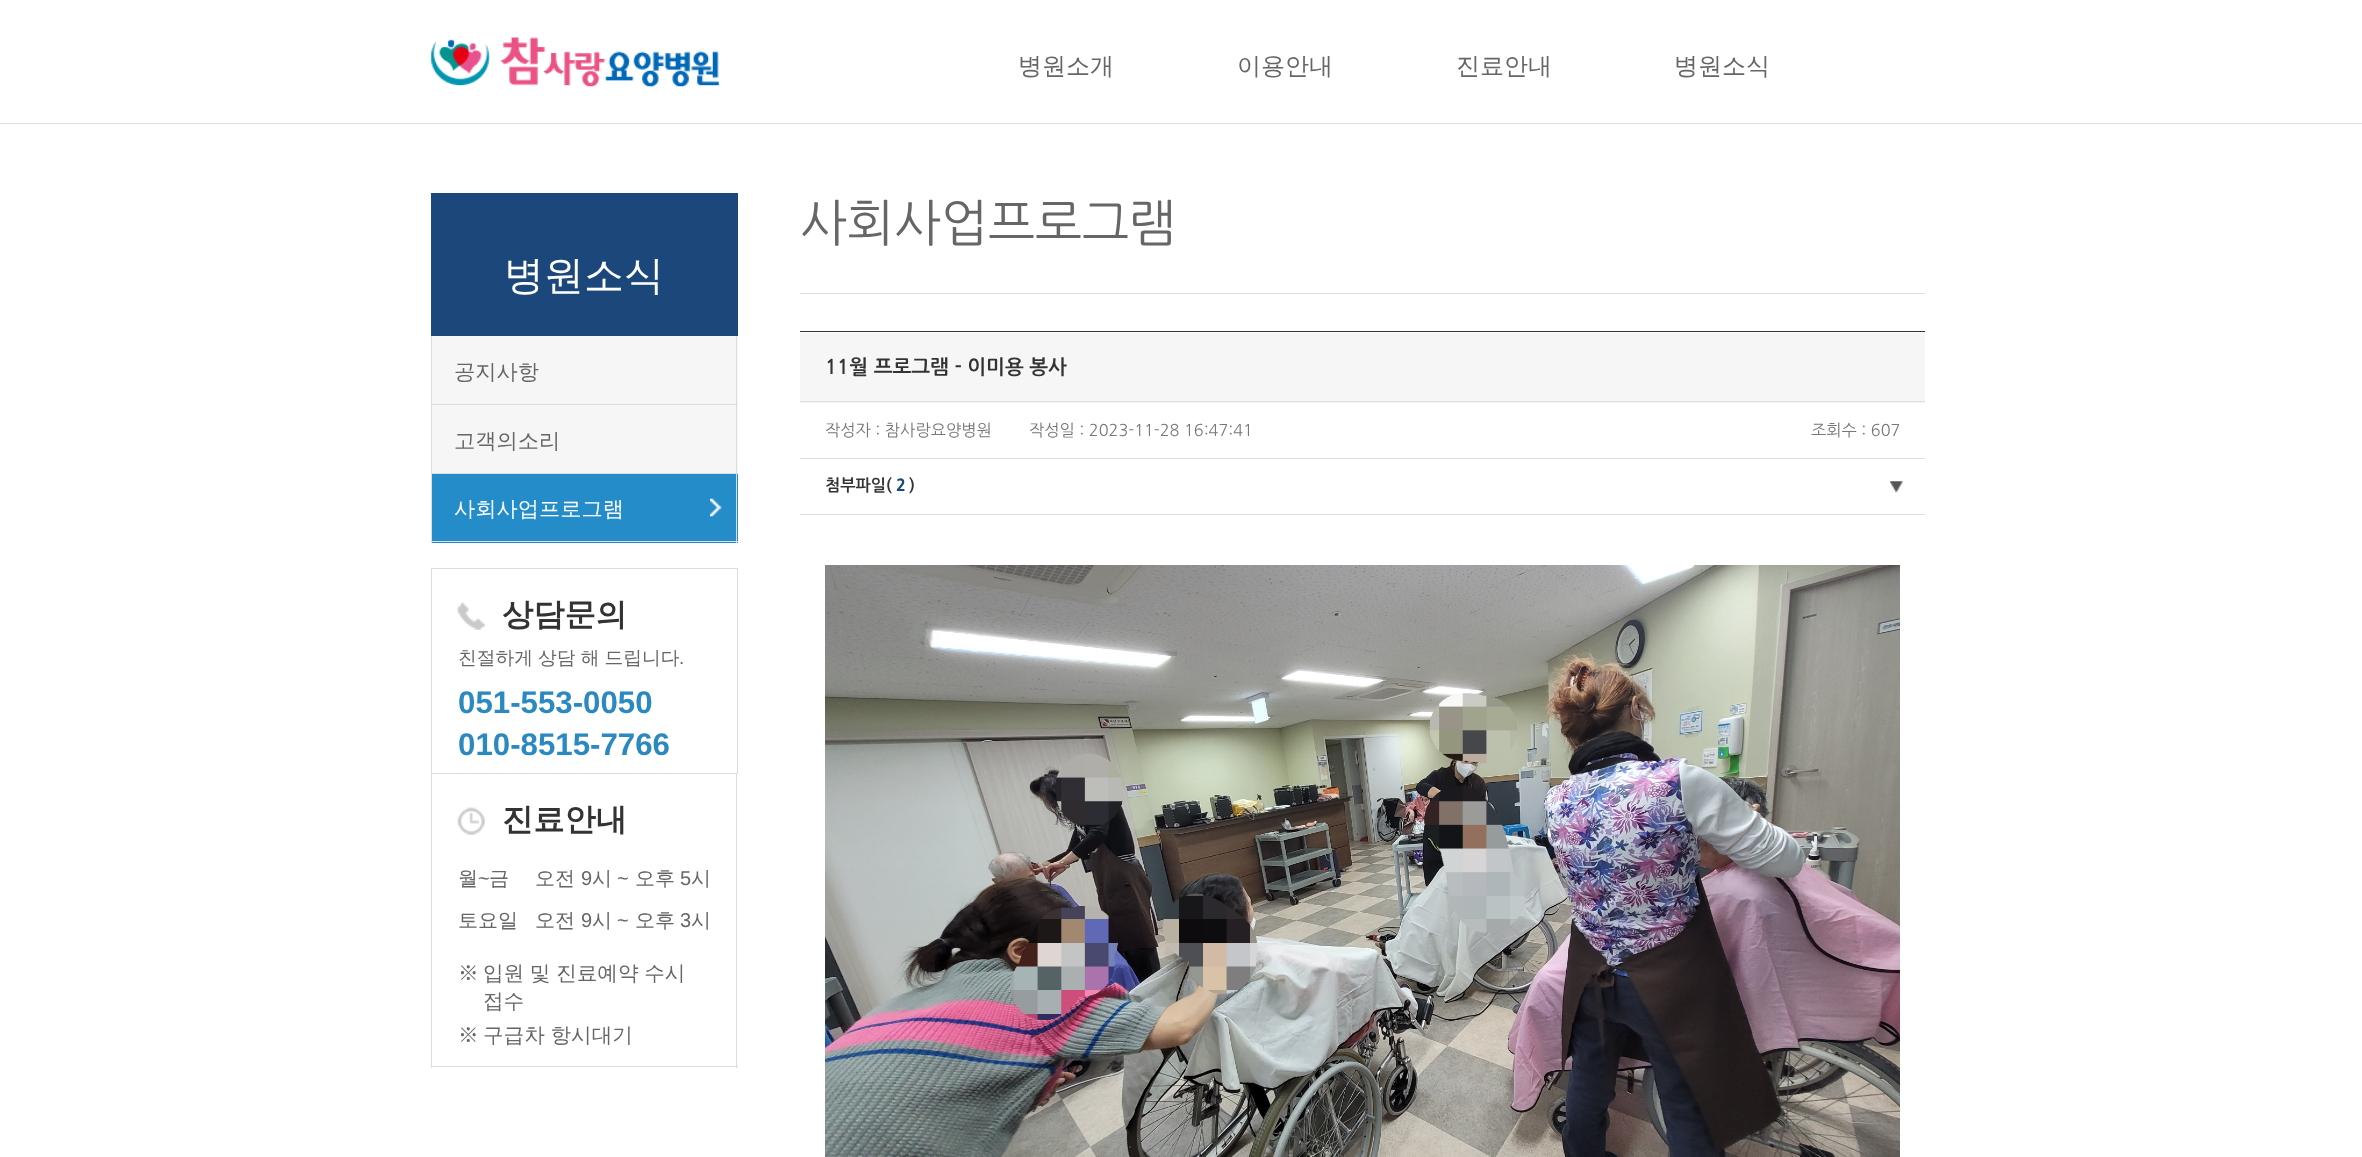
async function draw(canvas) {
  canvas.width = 2362
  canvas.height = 1157
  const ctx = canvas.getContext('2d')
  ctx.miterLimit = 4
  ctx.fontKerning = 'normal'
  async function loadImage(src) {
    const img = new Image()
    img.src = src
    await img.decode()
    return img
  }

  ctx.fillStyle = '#fff'
  ctx.fillRect(0, 0, 2362, 1157)
  ctx.fillStyle = '#ddd'
  ctx.fillRect(0, 123, 2362, 1)
  ctx.drawImage(await loadImage('image0.png'), 431, 37, 288, 50)
  ctx.font = '500 24px WenQuanYi Zen Hei'
  ctx.fillStyle = '#666'
  ctx.fillText('병원소개', 1018, 74)
  ctx.fillText('이용안내', 1237, 74)
  ctx.fillText('진료안내', 1456, 74)
  ctx.fillText('병원소식', 1674, 74)
  ctx.fillStyle = '#1b477a'
  ctx.fillRect(431, 193, 307, 143)
  ctx.font = '500 40px WenQuanYi Zen Hei'
  ctx.fillStyle = '#fff'
  ctx.fillText('병원소식', 504, 289)
  ctx.fillStyle = '#f6f6f6'
  ctx.fillRect(432, 336, 306, 68)
  ctx.fillStyle = '#ddd'
  ctx.fillRect(736, 336, 1, 69)
  ctx.fillRect(431, 404, 307, 1)
  ctx.fillRect(431, 336, 1, 69)
  ctx.font = '500 21.25px WenQuanYi Zen Hei'
  ctx.fillStyle = '#666'
  ctx.fillText('공지사항', 454, 379)
  ctx.fillStyle = '#f6f6f6'
  ctx.fillRect(432, 405, 306, 68)
  ctx.fillStyle = '#ddd'
  ctx.fillRect(736, 405, 1, 69)
  ctx.fillRect(431, 473, 307, 1)
  ctx.fillRect(431, 405, 1, 69)
  ctx.fillStyle = '#666'
  ctx.fillText('고객의소리', 454, 448)
  ctx.fillStyle = '#248dc9'
  ctx.fillRect(432, 474, 306, 69)
  ctx.drawImage(await loadImage('image1.png'), 710, 498, 12, 19)
  ctx.fillStyle = '#ddd'
  ctx.fillRect(736, 474, 1, 69)
  ctx.fillRect(431, 541, 307, 1)
  ctx.fillRect(431, 474, 1, 69)
  ctx.fillStyle = '#fff'
  ctx.fillText('사회사업프로그램', 454, 516)
  ctx.strokeStyle = '#ddd'
  ctx.strokeRect(431.5, 568.5, 306, 205)
  ctx.drawImage(await loadImage('image2.png'), 457, 602, 28, 28)
  ctx.font = 'bold 31.25px WenQuanYi Zen Hei'
  ctx.fillStyle = '#333'
  ctx.fillText('상담문의', 502, 625)
  ctx.wordSpacing = '-0.5px'
  ctx.font = '500 18.75px WenQuanYi Zen Hei'
  ctx.fillStyle = '#666'
  ctx.fillText('친절하게 상담 해 드립니다', 458, 664)
  ctx.wordSpacing = '0px'
  ctx.font = '18.75px Liberation Sans'
  ctx.fillText('.', 679, 664)
  ctx.font = 'bold 31.25px Liberation Sans'
  ctx.fillStyle = '#2989c0'
  ctx.fillText('051-553-0050', 458, 713)
  ctx.fillText('010-8515-7766', 458, 755)
  ctx.fillStyle = '#ddd'
  ctx.fillRect(736, 774, 1, 294)
  ctx.fillRect(431, 1066, 307, 1)
  ctx.fillRect(431, 774, 1, 294)
  ctx.drawImage(await loadImage('image3.png'), 457, 807, 28, 28)
  ctx.font = 'bold 31.25px WenQuanYi Zen Hei'
  ctx.fillStyle = '#333'
  ctx.fillText('진료안내', 502, 830)
  ctx.font = '500 20px WenQuanYi Zen Hei'
  ctx.fillStyle = '#666'
  ctx.fillText('월', 458, 885)
  ctx.font = '20px Liberation Sans'
  ctx.fillText('~', 478, 885)
  ctx.font = '500 20px WenQuanYi Zen Hei'
  ctx.fillText('금', 489, 885)
  ctx.fillText('오전', 535, 885)
  ctx.font = '20px Liberation Sans'
  ctx.fillText('9', 581, 885)
  ctx.font = '500 20px WenQuanYi Zen Hei'
  ctx.fillText('시', 592, 885)
  ctx.font = '20px Liberation Sans'
  ctx.fillText('~', 617, 885)
  ctx.font = '500 20px WenQuanYi Zen Hei'
  ctx.fillText('오후', 635, 885)
  ctx.font = '20px Liberation Sans'
  ctx.fillText('5', 680, 885)
  ctx.font = '500 20px WenQuanYi Zen Hei'
  ctx.fillText('시', 691, 885)
  ctx.fillText('토요일', 458, 927)
  ctx.fillText('오전', 535, 927)
  ctx.font = '20px Liberation Sans'
  ctx.fillText('9', 581, 927)
  ctx.font = '500 20px WenQuanYi Zen Hei'
  ctx.fillText('시', 592, 927)
  ctx.font = '20px Liberation Sans'
  ctx.fillText('~', 617, 927)
  ctx.font = '500 20px WenQuanYi Zen Hei'
  ctx.fillText('오후', 635, 927)
  ctx.font = '20px Liberation Sans'
  ctx.fillText('3', 680, 927)
  ctx.font = '500 20px WenQuanYi Zen Hei'
  ctx.fillText('시', 691, 927)
  ctx.font = '500 20.6px WenQuanYi Zen Hei'
  ctx.fillText('※', 458, 980)
  ctx.wordSpacing = '-0.5px'
  ctx.fillText('입원 및 진료예약 수시', 483, 980)
  ctx.wordSpacing = '0px'
  ctx.fillText('접수', 483, 1008)
  ctx.fillText('※', 458, 1042)
  ctx.wordSpacing = '-0.5px'
  ctx.fillText('구급차 항시대기', 483, 1042)
  ctx.fillStyle = '#ddd'
  ctx.fillRect(800, 293, 1125, 1)
  ctx.wordSpacing = '0px'
  ctx.font = '50px NanumGothic'
  ctx.fillStyle = '#666'
  ctx.fillText('사회사업프로그램', 800, 241)
  ctx.fillStyle = '#333'
  ctx.fillRect(800, 331, 1125, 1)
  ctx.fillStyle = '#f6f6f6'
  ctx.fillRect(800, 333, 1125, 70)
  ctx.fillStyle = '#ddd'
  ctx.fillRect(800, 401, 1125, 1)
  ctx.font = 'bold 20px NanumGothic'
  ctx.fillStyle = '#333'
  ctx.fillText('11월 프로그램 - 이미용 봉사', 825, 374)
  ctx.fillStyle = '#ddd'
  ctx.fillRect(800, 458, 1125, 1)
  ctx.font = '16.25px NanumGothic'
  ctx.fillStyle = '#777'
  ctx.fillText('작성자 : 참사랑요양병원', 825, 436)
  ctx.fillText('작성일 : 2023-11-28 16:47:41', 1029, 436)
  ctx.fillText('조회수 : 607', 1811, 436)
  ctx.drawImage(await loadImage('image4.png'), 1890, 481, 13, 12)
  ctx.fillStyle = '#ddd'
  ctx.fillRect(800, 514, 1125, 1)
  ctx.font = 'bold 16.25px NanumGothic'
  ctx.fillStyle = '#333'
  ctx.fillText('첨부파일(', 825, 491)
  ctx.font = '800 16.25px NanumGothic'
  ctx.fillStyle = '#1b477a'
  ctx.fillText('2', 896, 491)
  ctx.font = 'bold 16.25px NanumGothic'
  ctx.fillStyle = '#333'
  ctx.fillText(')', 909, 491)
  ctx.drawImage(await loadImage('image5.png'), 825, 565, 1075, 592)
}

draw(document.querySelector('canvas'))
